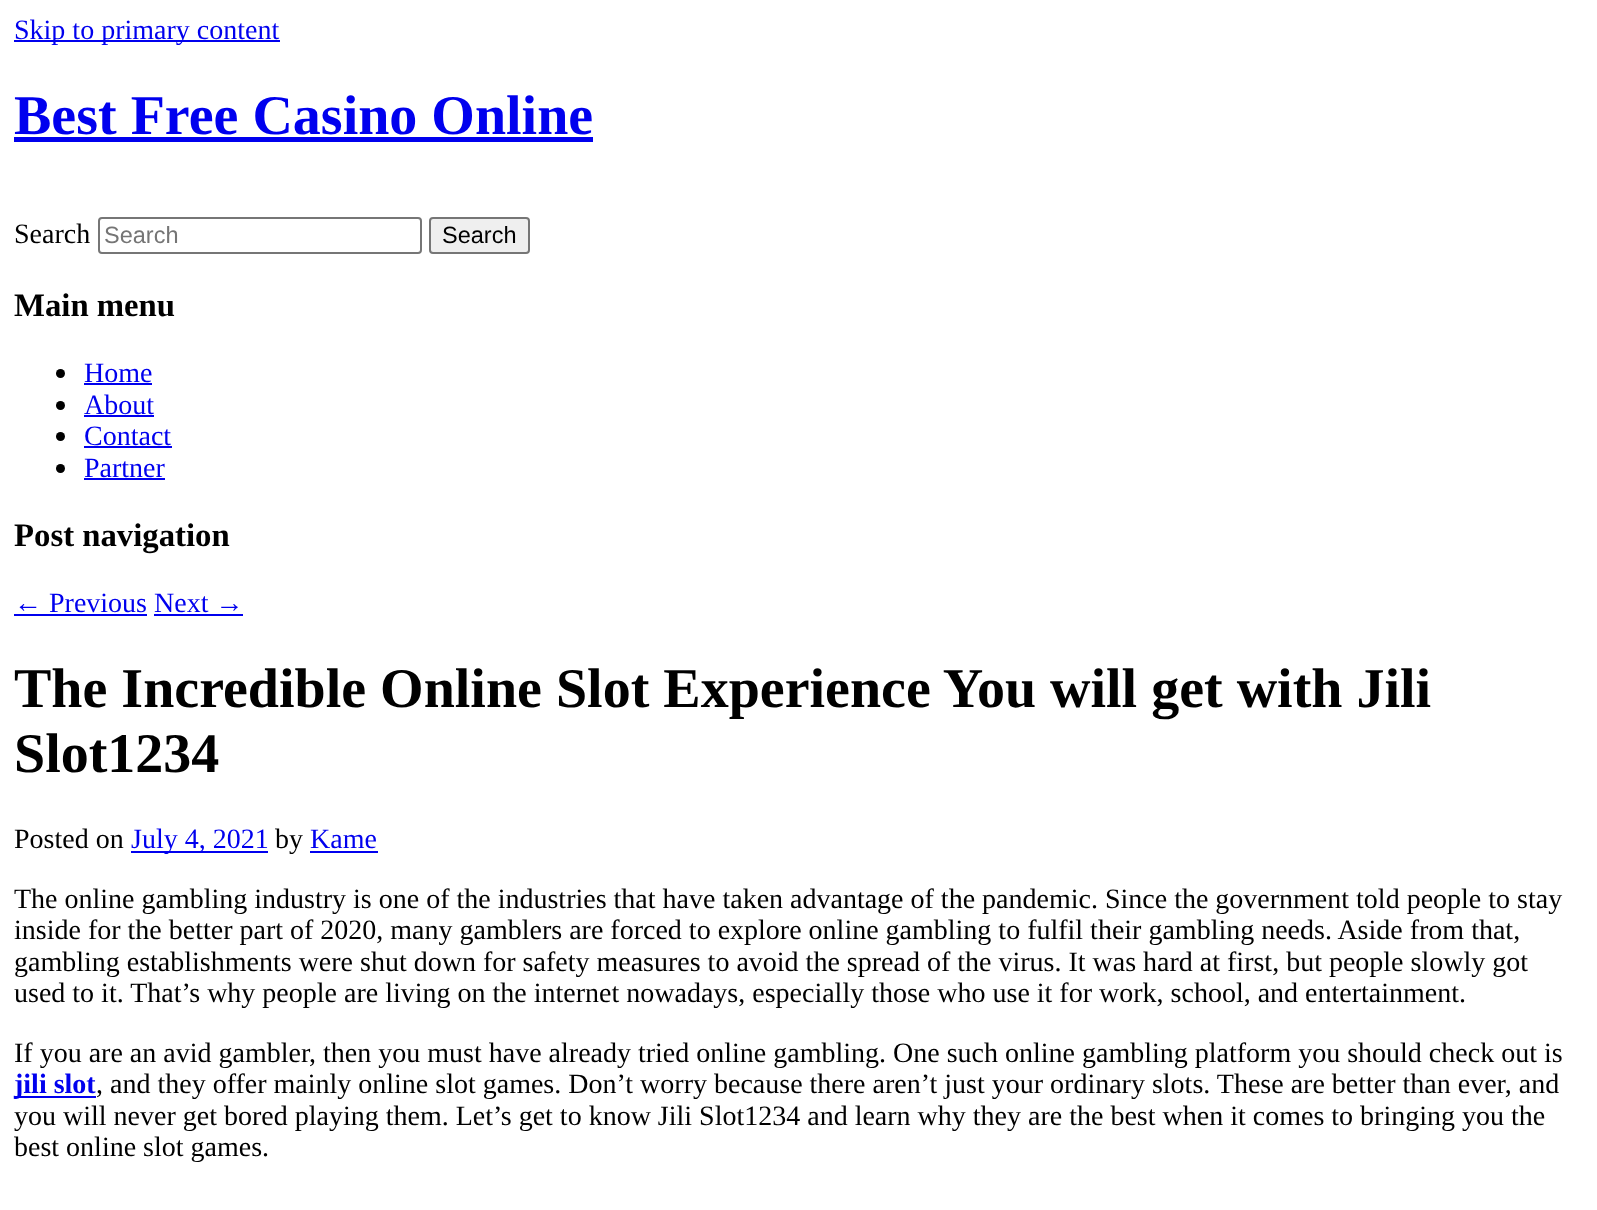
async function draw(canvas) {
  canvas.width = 1597
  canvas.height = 1210
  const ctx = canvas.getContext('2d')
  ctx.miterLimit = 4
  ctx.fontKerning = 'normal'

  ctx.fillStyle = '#fff'
  ctx.fillRect(0, 0, 1597, 1210)
  ctx.fillStyle = '#00e'
  ctx.fillRect(14, 40, 266, 2)
  ctx.font = '28px Liberation Serif'
  ctx.fillText('Skip to primary content', 14, 39)
  ctx.font = 'bold 56px Liberation Serif'
  ctx.fillText('Best Free Casino Online', 14, 134)
  ctx.fillRect(14, 137, 579, 5)
  ctx.font = '28px Liberation Serif'
  ctx.fillStyle = '#000'
  ctx.fillText('Search', 14, 243)
  ctx.beginPath()
  ctx.roundRect(99, 218, 322, 35, 3)
  ctx.strokeStyle = '#767676'
  ctx.lineWidth = 2
  ctx.stroke()
  ctx.font = '23.5px Liberation Sans'
  ctx.fillStyle = '#757575'
  ctx.fillText('Search', 104, 243)
  ctx.fillStyle = '#efefef'
  ctx.beginPath()
  ctx.roundRect(430, 218, 99, 35, 3)
  ctx.fill()
  ctx.stroke()
  ctx.fillStyle = '#000'
  ctx.fillText('Search', 442, 243)
  ctx.font = 'bold 32.75px Liberation Serif'
  ctx.fillText('Main menu', 14, 316)
  ctx.beginPath()
  ctx.arc(60.5, 373.5, 4.5, 0, 2 * Math.PI)
  ctx.fill()
  ctx.font = '28px Liberation Serif'
  ctx.fillStyle = '#00e'
  ctx.fillText('Home', 84, 382)
  ctx.fillRect(84, 383, 68, 2)
  ctx.fillStyle = '#000'
  ctx.beginPath()
  ctx.arc(60.5, 405.5, 4.5, 0, 2 * Math.PI)
  ctx.fill()
  ctx.fillStyle = '#00e'
  ctx.fillText('About', 84, 414)
  ctx.fillRect(84, 415, 70, 2)
  ctx.fillStyle = '#000'
  ctx.beginPath()
  ctx.arc(60.5, 436.5, 4.5, 0, 2 * Math.PI)
  ctx.fill()
  ctx.fillStyle = '#00e'
  ctx.fillText('Contact', 84, 445)
  ctx.fillRect(84, 446, 88, 2)
  ctx.fillStyle = '#000'
  ctx.beginPath()
  ctx.arc(60.5, 468.5, 4.5, 0, 2 * Math.PI)
  ctx.fill()
  ctx.fillStyle = '#00e'
  ctx.fillText('Partner', 84, 477)
  ctx.fillRect(84, 478, 81, 2)
  ctx.font = 'bold 32.75px Liberation Serif'
  ctx.fillStyle = '#000'
  ctx.fillText('Post navigation', 14, 546)
  ctx.font = '28px Liberation Serif'
  ctx.fillStyle = '#00e'
  ctx.fillText('← Previous Next →', 14, 612)
  ctx.fillRect(14, 614, 133, 2)
  ctx.fillRect(154, 614, 89, 2)
  ctx.font = 'bold 56px Liberation Serif'
  ctx.fillStyle = '#000'
  ctx.fillText('The Incredible Online Slot Experience You will get with Jili', 14, 707)
  ctx.fillText('Slot1234', 14, 772)
  ctx.font = '28px Liberation Serif'
  ctx.fillText('Posted on', 14, 848)
  ctx.fillStyle = '#00e'
  ctx.fillRect(131, 851, 137, 2)
  ctx.fillText('July 4, 2021', 131, 848)
  ctx.fillStyle = '#000'
  ctx.fillText('by', 275, 848)
  ctx.fillStyle = '#00e'
  ctx.fillText('Kame', 310, 848)
  ctx.fillRect(310, 851, 68, 2)
  ctx.fillStyle = '#000'
  ctx.fillText('The online gambling industry is one of the industries that have taken advantage of the pandemic. Since the government told people to stay', 14, 908)
  ctx.fillText('inside for the better part of 2020, many gamblers are forced to explore online gambling to fulfil their gambling needs. Aside from that,', 14, 939)
  ctx.fillText('gambling establishments were shut down for safety measures to avoid the spread of the virus. It was hard at first, but people slowly got', 14, 971)
  ctx.fillText('used to it. That’s why people are living on the internet nowadays, especially those who use it for work, school, and entertainment.', 14, 1002)
  ctx.fillText('If you are an avid gambler, then you must have already tried online gambling. One such online gambling platform you should check out is', 14, 1062)
  ctx.fillStyle = '#00e'
  ctx.fillRect(14, 1096, 82, 2)
  ctx.font = 'bold 28px Liberation Serif'
  ctx.fillText('jili slot', 14, 1093)
  ctx.font = '28px Liberation Serif'
  ctx.fillStyle = '#000'
  ctx.fillText(', and they offer mainly online slot games. Don’t worry because there aren’t just your ordinary slots. These are better than ever, and', 96, 1093)
  ctx.fillText('you will never get bored playing them. Let’s get to know Jili Slot1234 and learn why they are the best when it comes to bringing you the', 14, 1125)
  ctx.fillText('best online slot games.', 14, 1156)
}

draw(document.querySelector('canvas'))
